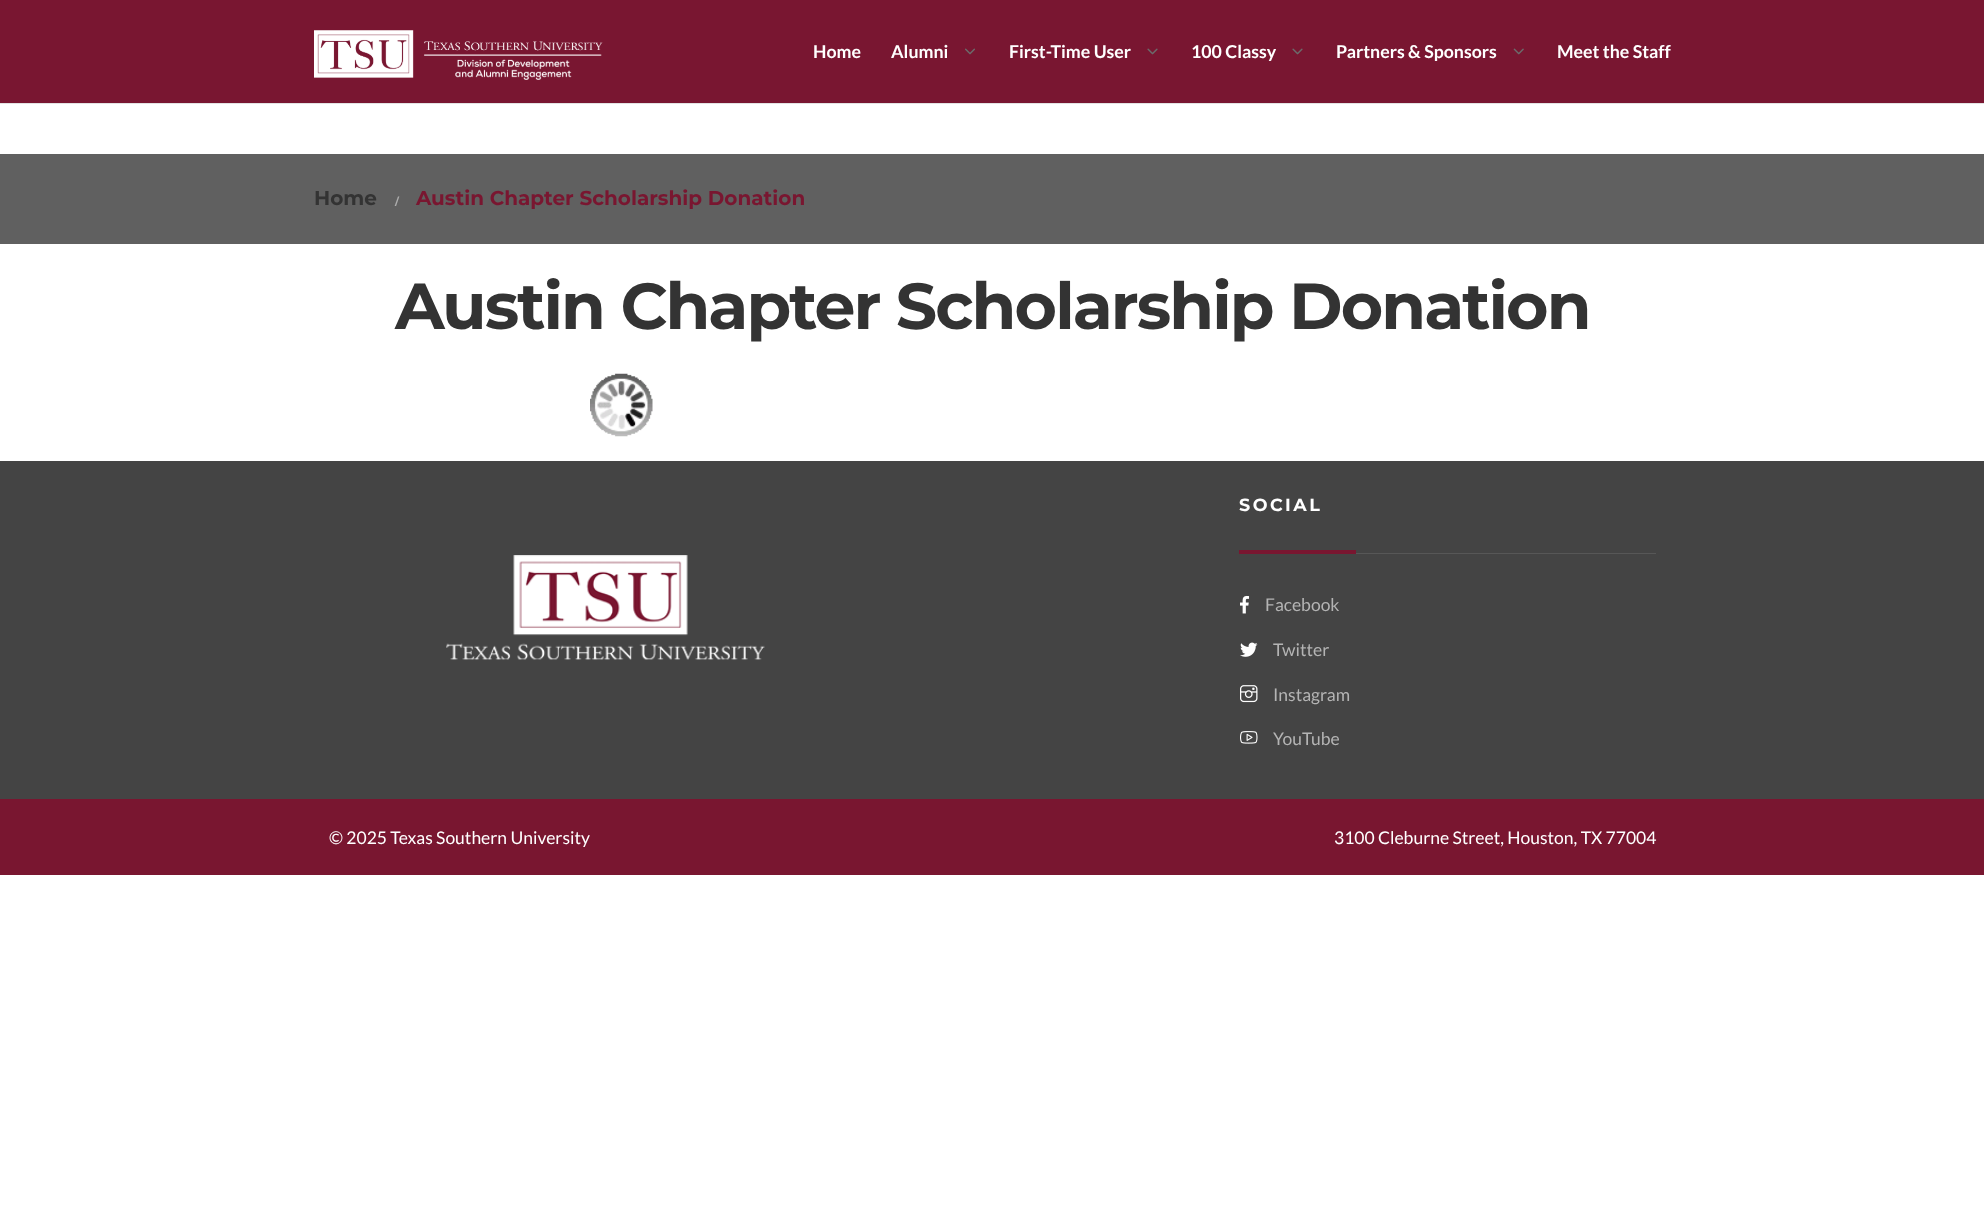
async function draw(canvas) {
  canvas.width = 1984
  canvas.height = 1232
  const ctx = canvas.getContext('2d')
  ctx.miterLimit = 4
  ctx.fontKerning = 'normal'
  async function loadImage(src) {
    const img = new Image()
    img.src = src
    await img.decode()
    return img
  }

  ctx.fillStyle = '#fff'
  ctx.fillRect(0, 0, 1984, 1232)
  ctx.fillStyle = '#791631'
  ctx.fillRect(0, 0, 1984, 103)
  ctx.fillStyle = '#e3e3e3'
  ctx.fillRect(0, 103, 1984, 1)
  ctx.drawImage(await loadImage('image0.png'), 314, 30, 289, 50)
  ctx.font = 'bold 17.75px Lato'
  ctx.fillStyle = '#fff'
  ctx.fillText('Home', 813, 58)
  ctx.fillText('Alumni', 891, 58)
  ctx.drawImage(await loadImage('image1.png'), 965, 48, 10, 7)
  ctx.fillText('First-Time User', 1009, 58)
  ctx.drawImage(await loadImage('image2.png'), 1147, 48, 11, 7)
  ctx.fillText('100 Classy', 1191, 58)
  ctx.drawImage(await loadImage('image2.png'), 1292, 48, 11, 7)
  ctx.fillText('Partners & Sponsors', 1336, 58)
  ctx.drawImage(await loadImage('image3.png'), 1513, 48, 11, 7)
  ctx.fillText('Meet the Staff', 1557, 58)
  ctx.fillStyle = '#606060'
  ctx.fillRect(0, 154, 1984, 90)
  ctx.font = 'bold 20px Montserrat'
  ctx.fillStyle = '#333'
  ctx.fillText('Home', 314, 205)
  ctx.font = 'bold 10px Montserrat'
  ctx.fillStyle = '#aeaeae'
  ctx.fillText('/', 395, 205)
  ctx.font = 'bold 20px Montserrat'
  ctx.fillStyle = '#791630'
  ctx.fillText('Austin Chapter Scholarship Donation', 416, 205)
  ctx.letterSpacing = '-1.95px'
  ctx.font = 'bold 64.9px Montserrat'
  ctx.fillStyle = '#333'
  ctx.fillText('Austin Chapter Scholarship Donation', 395, 329)
  ctx.drawImage(await loadImage('image4.png'), 590, 373, 63, 64)
  ctx.fillStyle = '#444'
  ctx.fillRect(0, 461, 1984, 338)
  ctx.drawImage(await loadImage('image5.png'), 446, 555, 319, 105)
  ctx.letterSpacing = '2.5px'
  ctx.font = 'bold 17.5px Montserrat'
  ctx.fillStyle = '#fff'
  ctx.fillText('SOCIAL', 1239, 511)
  ctx.fillStyle = '#791630'
  ctx.fillRect(1239, 550, 117, 4)
  ctx.fillStyle = '#575757'
  ctx.fillRect(1356, 553, 300, 1)
  ctx.drawImage(await loadImage('image6.png'), 1240, 595, 10, 19)
  ctx.letterSpacing = '0px'
  ctx.font = '17.5px Lato'
  ctx.fillStyle = '#b4b4b4'
  ctx.fillText('Facebook', 1265, 611)
  ctx.drawImage(await loadImage('image7.png'), 1240, 642, 18, 15)
  ctx.fillText('Twitter', 1273, 656)
  ctx.drawImage(await loadImage('image8.png'), 1240, 685, 18, 18)
  ctx.fillText('Instagram', 1273, 701)
  ctx.drawImage(await loadImage('image9.png'), 1240, 731, 18, 13)
  ctx.fillText('YouTube', 1273, 745)
  ctx.fillStyle = '#791630'
  ctx.fillRect(0, 799, 1984, 76)
  ctx.fillStyle = '#fff'
  ctx.fillText('© 2025 Texas Southern University', 329, 844)
  ctx.fillText('3100 Cleburne Street, Houston, TX 77004', 1334, 844)
}

draw(document.querySelector('canvas'))
